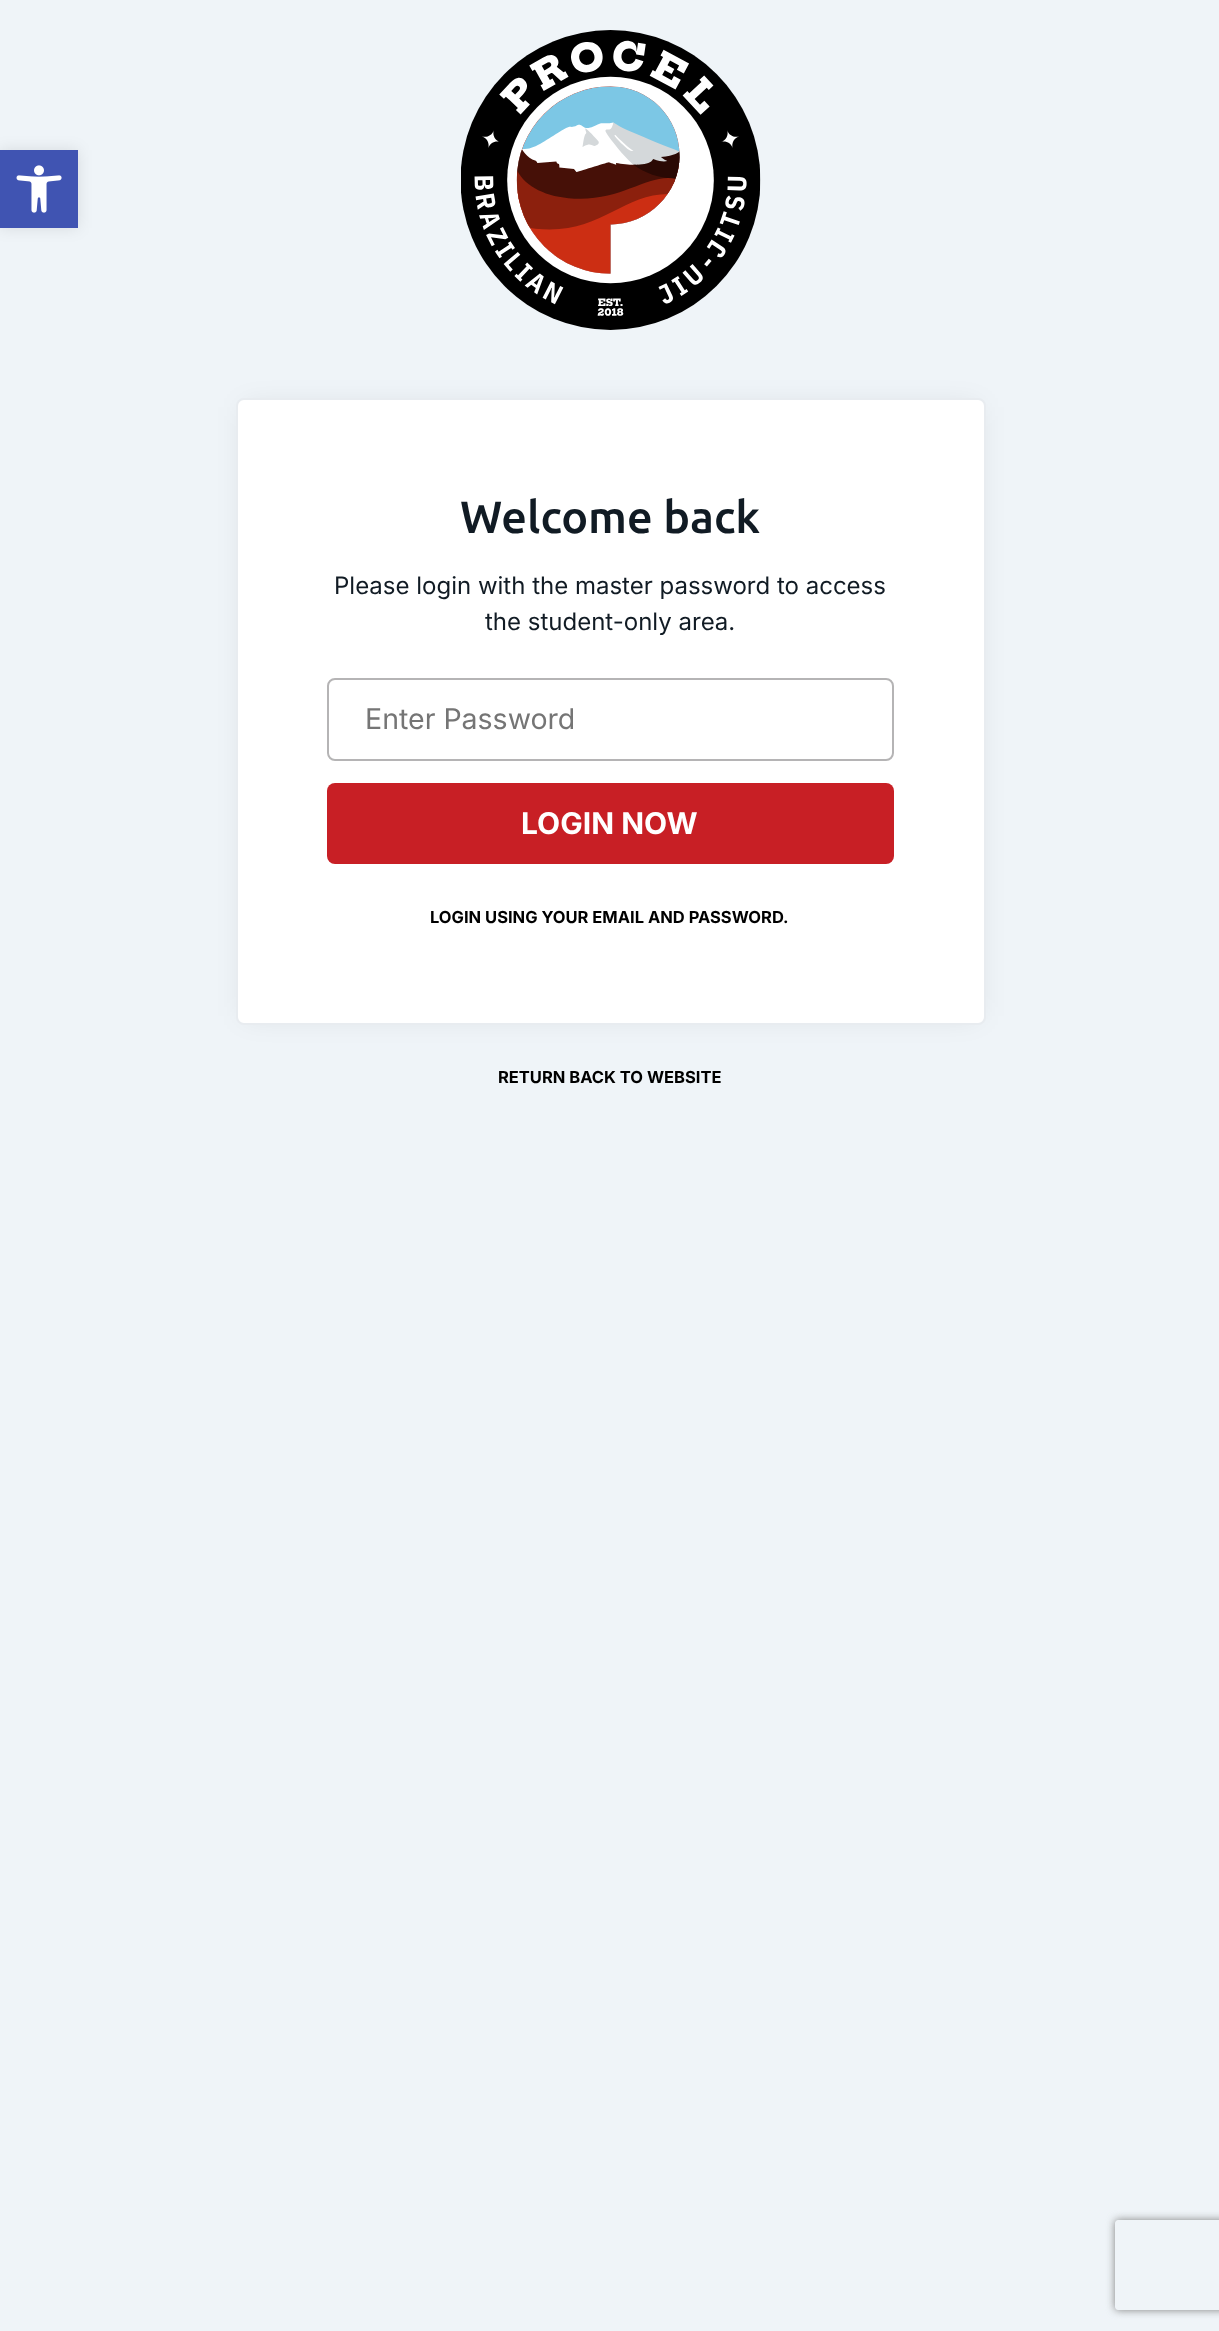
async function draw(canvas) {
  canvas.width = 1219
  canvas.height = 2331
  const ctx = canvas.getContext('2d')
  ctx.miterLimit = 4
  ctx.fontKerning = 'normal'
  async function loadImage(src) {
    const img = new Image()
    img.src = src
    await img.decode()
    return img
  }

  ctx.fillStyle = '#eff4f8'
  ctx.fillRect(0, 0, 1219, 2331)
  ctx.fillStyle = '#0000001a'
  ctx.filter = 'blur(7.5px)'
  ctx.beginPath()
  ctx.rect(0, 150, 78, 78)
  ctx.fill()
  ctx.filter = 'none'
  ctx.fillStyle = '#4054b2'
  ctx.fillRect(0, 150, 78, 78)
  ctx.drawImage(await loadImage('image0.png'), 16, 165, 46, 48)
  ctx.drawImage(await loadImage('image1.png'), 461, 30, 300, 300)
  ctx.fillStyle = '#0000001a'
  ctx.filter = 'blur(14px)'
  ctx.beginPath()
  ctx.rect(245, 407, 732, 609)
  ctx.fill()
  ctx.filter = 'none'
  ctx.fillStyle = '#fff'
  ctx.beginPath()
  ctx.roundRect(237, 399, 748, 625, 7)
  ctx.fill()
  ctx.strokeStyle = '#e8ecf0'
  ctx.lineWidth = 2
  ctx.stroke()
  ctx.font = '500 45px Ubuntu'
  ctx.fillStyle = '#111b24'
  ctx.fillText('Welcome back', 460, 533)
  ctx.font = '24px Inter'
  ctx.fillText('Please login with the master password to access', 334, 594)
  ctx.fillText('the student-only area.', 485, 630)
  ctx.beginPath()
  ctx.roundRect(328, 679, 565, 81, 7)
  ctx.strokeStyle = '#b5b4b5'
  ctx.stroke()
  ctx.font = '28.5px Inter'
  ctx.fillStyle = '#757575'
  ctx.fillText('Enter Password', 365, 729)
  ctx.fillStyle = '#c81f25'
  ctx.beginPath()
  ctx.roundRect(327, 783, 567, 81, 8)
  ctx.fill()
  ctx.font = 'bold 30px Inter'
  ctx.fillStyle = '#fff'
  ctx.fillText('LOGIN NOW', 521, 834)
  ctx.font = 'bold 16.5px Inter'
  ctx.fillStyle = '#000'
  ctx.fillText('LOGIN USING YOUR EMAIL AND PASSWORD.', 430, 923)
  ctx.fillText('RETURN BACK TO WEBSITE', 498, 1083)
  ctx.save()
  ctx.beginPath()
  ctx.moveTo(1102, 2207)
  ctx.lineTo(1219, 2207)
  ctx.lineTo(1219, 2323)
  ctx.lineTo(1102, 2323)
  ctx.closePath()
  ctx.moveTo(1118, 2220)
  ctx.lineTo(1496, 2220)
  ctx.bezierCurveTo(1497.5, 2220, 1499, 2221.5, 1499, 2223)
  ctx.lineTo(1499, 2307)
  ctx.bezierCurveTo(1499, 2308.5, 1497.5, 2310, 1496, 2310)
  ctx.lineTo(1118, 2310)
  ctx.bezierCurveTo(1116.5, 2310, 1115, 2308.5, 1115, 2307)
  ctx.lineTo(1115, 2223)
  ctx.bezierCurveTo(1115, 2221.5, 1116.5, 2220, 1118, 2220)
  ctx.closePath()
  ctx.clip('evenodd')
  ctx.fillStyle = '#808080'
  ctx.filter = 'blur(4px)'
  ctx.beginPath()
  ctx.roundRect(1115, 2220, 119, 90, 3)
  ctx.fill()
  ctx.filter = 'none'
  ctx.restore()
}

draw(document.querySelector('canvas'))
